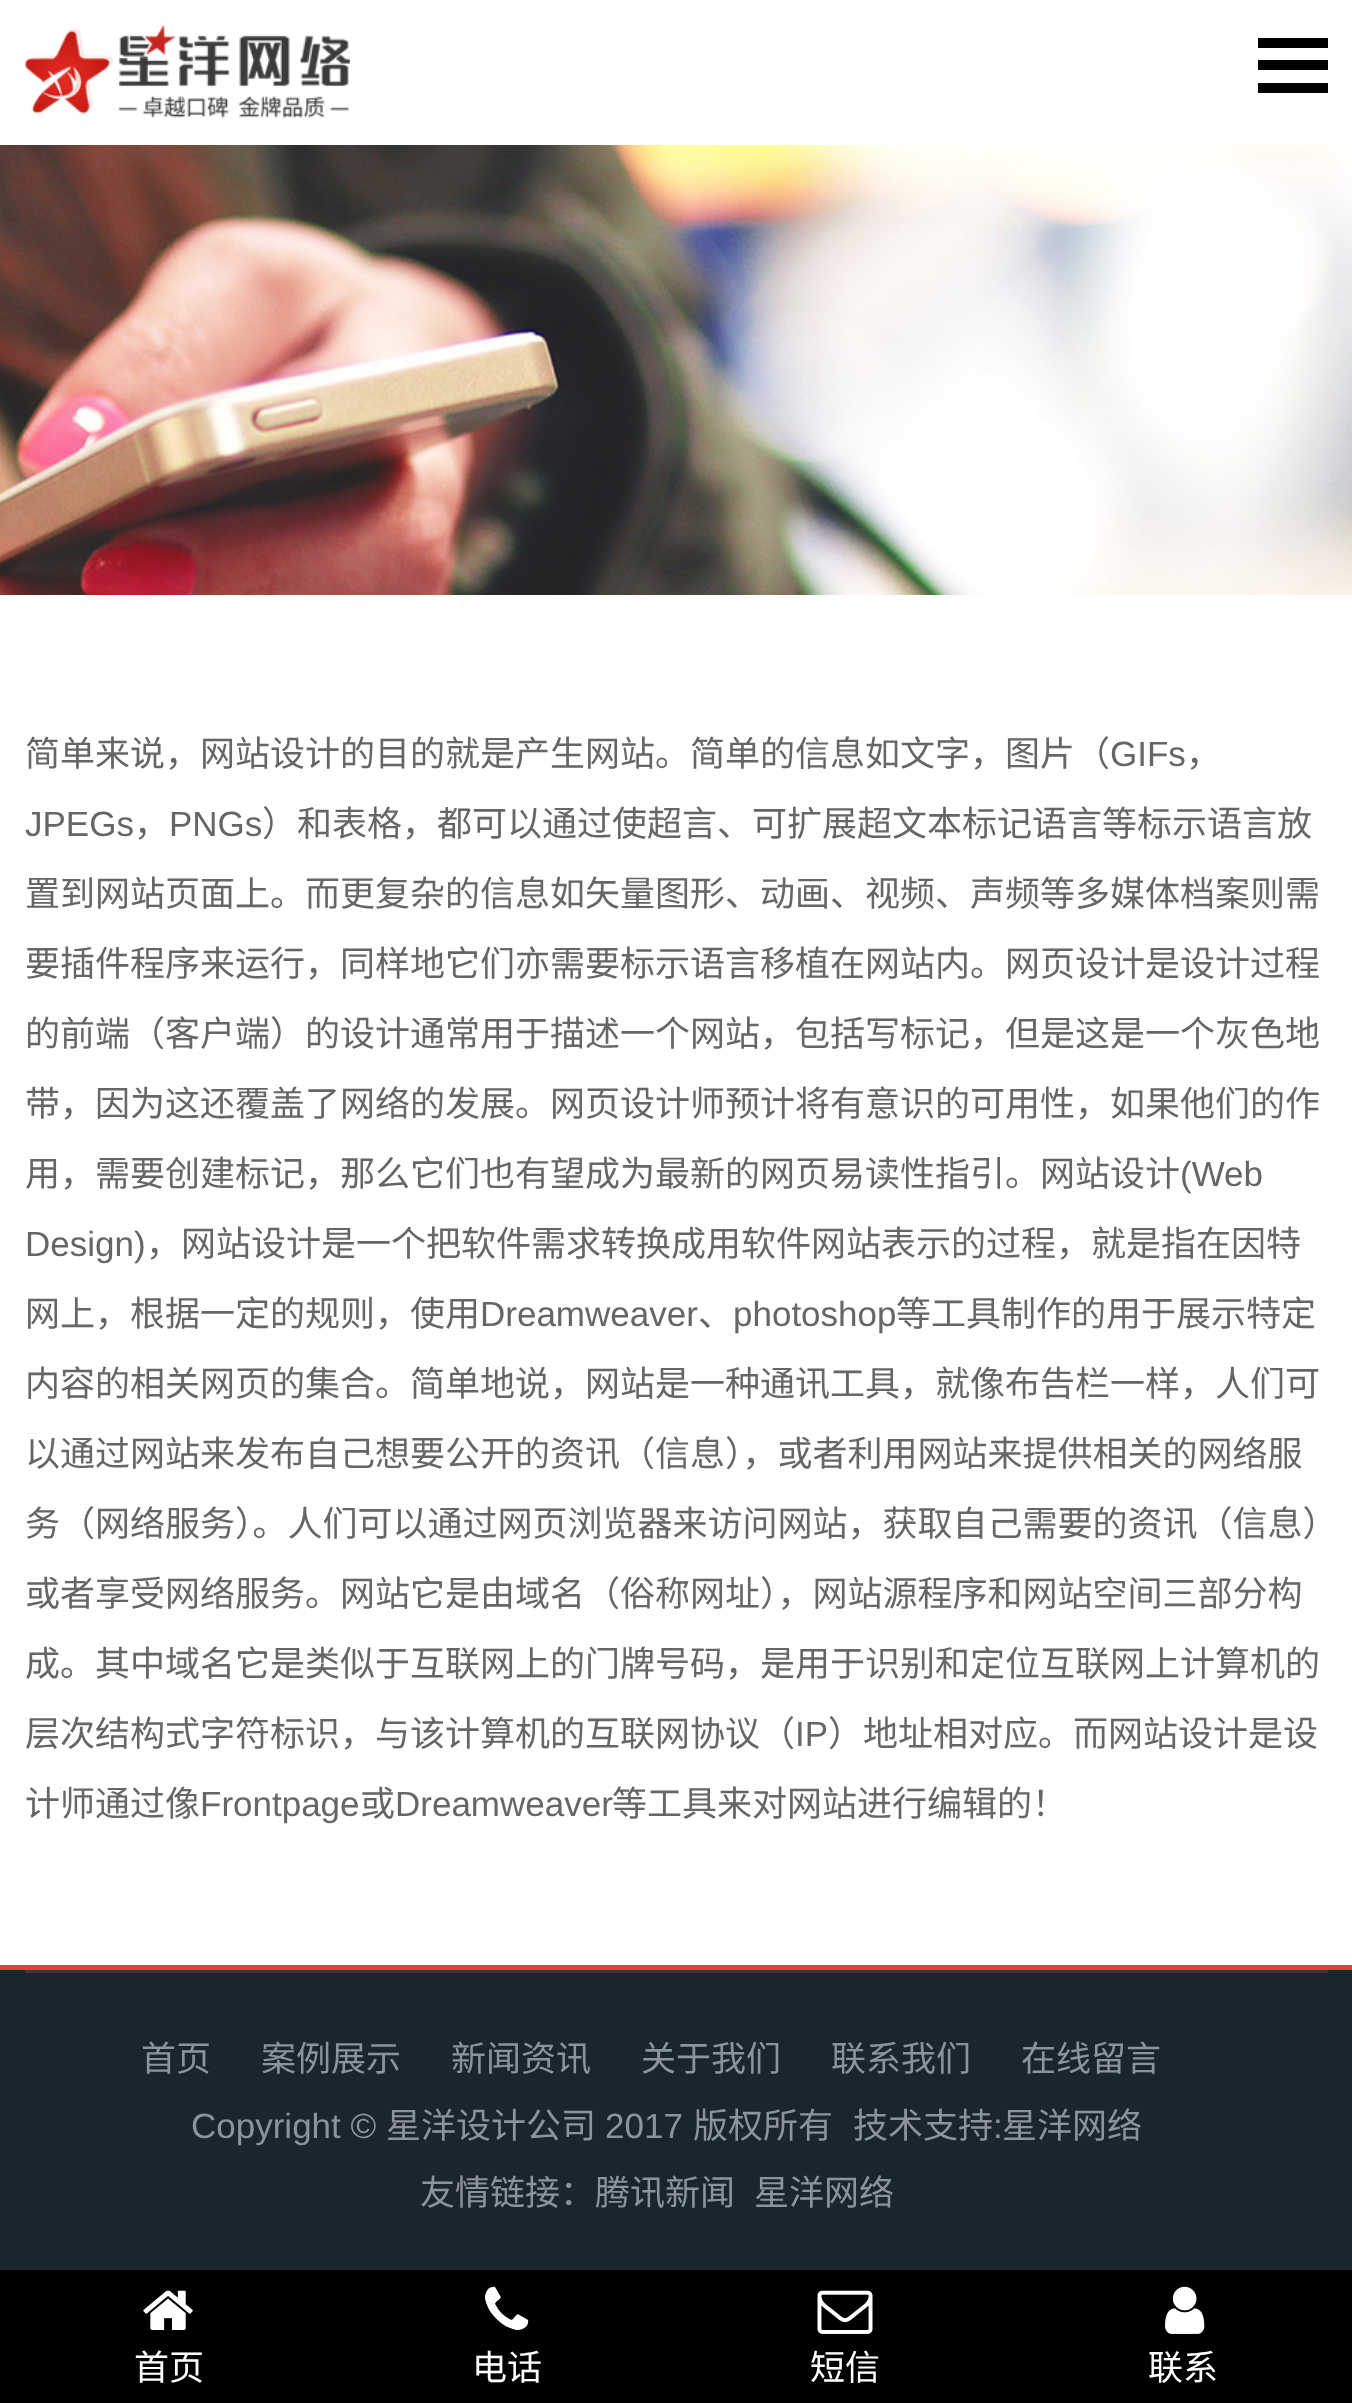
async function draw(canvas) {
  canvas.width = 1352
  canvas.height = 2403
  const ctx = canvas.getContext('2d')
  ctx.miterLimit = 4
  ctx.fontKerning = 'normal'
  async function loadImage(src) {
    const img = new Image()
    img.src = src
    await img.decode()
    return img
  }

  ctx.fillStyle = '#fff'
  ctx.fillRect(0, 0, 1352, 2403)
  ctx.drawImage(await loadImage('image0.png'), 25, 25, 325, 93)
  ctx.fillStyle = '#000'
  ctx.fillRect(1258, 60, 70, 10)
  ctx.fillRect(1258, 38, 70, 10)
  ctx.fillRect(1258, 83, 70, 10)
  ctx.drawImage(await loadImage('image1.png'), 0, 145, 1352, 450)
  ctx.font = '35px Noto Sans CJK SC'
  ctx.fillStyle = '#666'
  ctx.fillText('简单来说，网站设计的目的就是产生网站。简单的信息如文字，图片（', 25, 766)
  ctx.font = '35px Liberation Sans'
  ctx.fillText('GIFs', 1110, 766)
  ctx.font = '35px Noto Sans CJK SC'
  ctx.fillText('，', 1186, 766)
  ctx.font = '35px Liberation Sans'
  ctx.fillText('JPEGs', 25, 836)
  ctx.font = '35px Noto Sans CJK SC'
  ctx.fillText('，', 134, 836)
  ctx.font = '35px Liberation Sans'
  ctx.fillText('PNGs', 169, 836)
  ctx.font = '35px Noto Sans CJK SC'
  ctx.fillText('）和表格，都可以通过使超言、可扩展超文本标记语言等标示语言放', 262, 836)
  ctx.fillText('置到网站页面上。而更复杂的信息如矢量图形、动画、视频、声频等多媒体档案则需', 25, 906)
  ctx.fillText('要插件程序来运行，同样地它们亦需要标示语言移植在网站内。网页设计是设计过程', 25, 976)
  ctx.fillText('的前端（客户端）的设计通常用于描述一个网站，包括写标记，但是这是一个灰色地', 25, 1046)
  ctx.fillText('带，因为这还覆盖了网络的发展。网页设计师预计将有意识的可用性，如果他们的作', 25, 1116)
  ctx.fillText('用，需要创建标记，那么它们也有望成为最新的网页易读性指引。网站设计', 25, 1186)
  ctx.font = '35px Liberation Sans'
  ctx.fillText('(Web', 1180, 1186)
  ctx.fillText('Design)', 25, 1256)
  ctx.font = '35px Noto Sans CJK SC'
  ctx.fillText('，网站设计是一个把软件需求转换成用软件网站表示的过程，就是指在因特', 146, 1256)
  ctx.fillText('网上，根据一定的规则，使用', 25, 1326)
  ctx.font = '35px Liberation Sans'
  ctx.fillText('Dreamweaver', 480, 1326)
  ctx.font = '35px Noto Sans CJK SC'
  ctx.fillText('、', 698, 1326)
  ctx.font = '35px Liberation Sans'
  ctx.fillText('photoshop', 733, 1326)
  ctx.font = '35px Noto Sans CJK SC'
  ctx.fillText('等工具制作的用于展示特定', 896, 1326)
  ctx.fillText('内容的相关网页的集合。简单地说，网站是一种通讯工具，就像布告栏一样，人们可', 25, 1396)
  ctx.fillText('以通过网站来发布自己想要公开的资讯（信息），或者利用网站来提供相关的网络服', 25, 1466)
  ctx.fillText('务（网络服务）。人们可以通过网页浏览器来访问网站，获取自己需要的资讯（信息）', 25, 1536)
  ctx.fillText('或者享受网络服务。网站它是由域名（俗称网址），网站源程序和网站空间三部分构', 25, 1606)
  ctx.fillText('成。其中域名它是类似于互联网上的门牌号码，是用于识别和定位互联网上计算机的', 25, 1676)
  ctx.fillText('层次结构式字符标识，与该计算机的互联网协议（', 25, 1746)
  ctx.font = '35px Liberation Sans'
  ctx.fillText('IP', 795, 1746)
  ctx.font = '35px Noto Sans CJK SC'
  ctx.fillText('）地址相对应。而网站设计是设', 828, 1746)
  ctx.fillText('计师通过像', 25, 1816)
  ctx.font = '35px Liberation Sans'
  ctx.fillText('Frontpage', 200, 1816)
  ctx.font = '35px Noto Sans CJK SC'
  ctx.fillText('或', 360, 1816)
  ctx.font = '35px Liberation Sans'
  ctx.fillText('Dreamweaver', 395, 1816)
  ctx.font = '35px Noto Sans CJK SC'
  ctx.fillText('等工具来对网站进行编辑的！', 612, 1816)
  ctx.fillStyle = '#1b252e'
  ctx.fillRect(0, 1970, 1352, 300)
  ctx.fillStyle = '#f13a3a'
  ctx.fillRect(0, 1965, 1352, 5)
  ctx.fillStyle = '#313a43'
  ctx.fillRect(25, 1970, 1303, 3)
  ctx.fillStyle = '#8b939d'
  ctx.fillText('首页', 141, 2071)
  ctx.fillText('案例展示', 261, 2071)
  ctx.fillText('新闻资讯', 451, 2071)
  ctx.fillText('关于我们', 641, 2071)
  ctx.fillText('联系我们', 831, 2071)
  ctx.fillText('在线留言', 1021, 2071)
  ctx.font = '35px Liberation Sans'
  ctx.fillText('Copyright ©', 191, 2138)
  ctx.font = '35px Noto Sans CJK SC'
  ctx.fillText('星洋设计公司', 386, 2138)
  ctx.font = '35px Liberation Sans'
  ctx.fillText('2017', 605, 2138)
  ctx.font = '35px Noto Sans CJK SC'
  ctx.fillText('版权所有', 693, 2138)
  ctx.fillText('技术支持', 853, 2138)
  ctx.font = '35px Liberation Sans'
  ctx.fillText(':', 993, 2138)
  ctx.font = '35px Noto Sans CJK SC'
  ctx.fillText('星洋网络', 1002, 2138)
  ctx.fillText('友情链接：腾讯新闻', 420, 2205)
  ctx.fillText('星洋网络', 754, 2205)
  ctx.fillStyle = '#000'
  ctx.fillRect(0, 2270, 1352, 133)
  ctx.drawImage(await loadImage('image2.png'), 143, 2290, 50, 40)
  ctx.fillStyle = '#fff'
  ctx.fillText('首页', 134, 2380)
  ctx.drawImage(await loadImage('image3.png'), 485, 2286, 44, 44)
  ctx.fillText('电话', 472, 2380)
  ctx.drawImage(await loadImage('image4.png'), 817, 2290, 56, 44)
  ctx.fillText('短信', 810, 2380)
  ctx.drawImage(await loadImage('image5.png'), 1165, 2286, 40, 48)
  ctx.fillText('联系', 1148, 2380)
}

draw(document.querySelector('canvas'))
